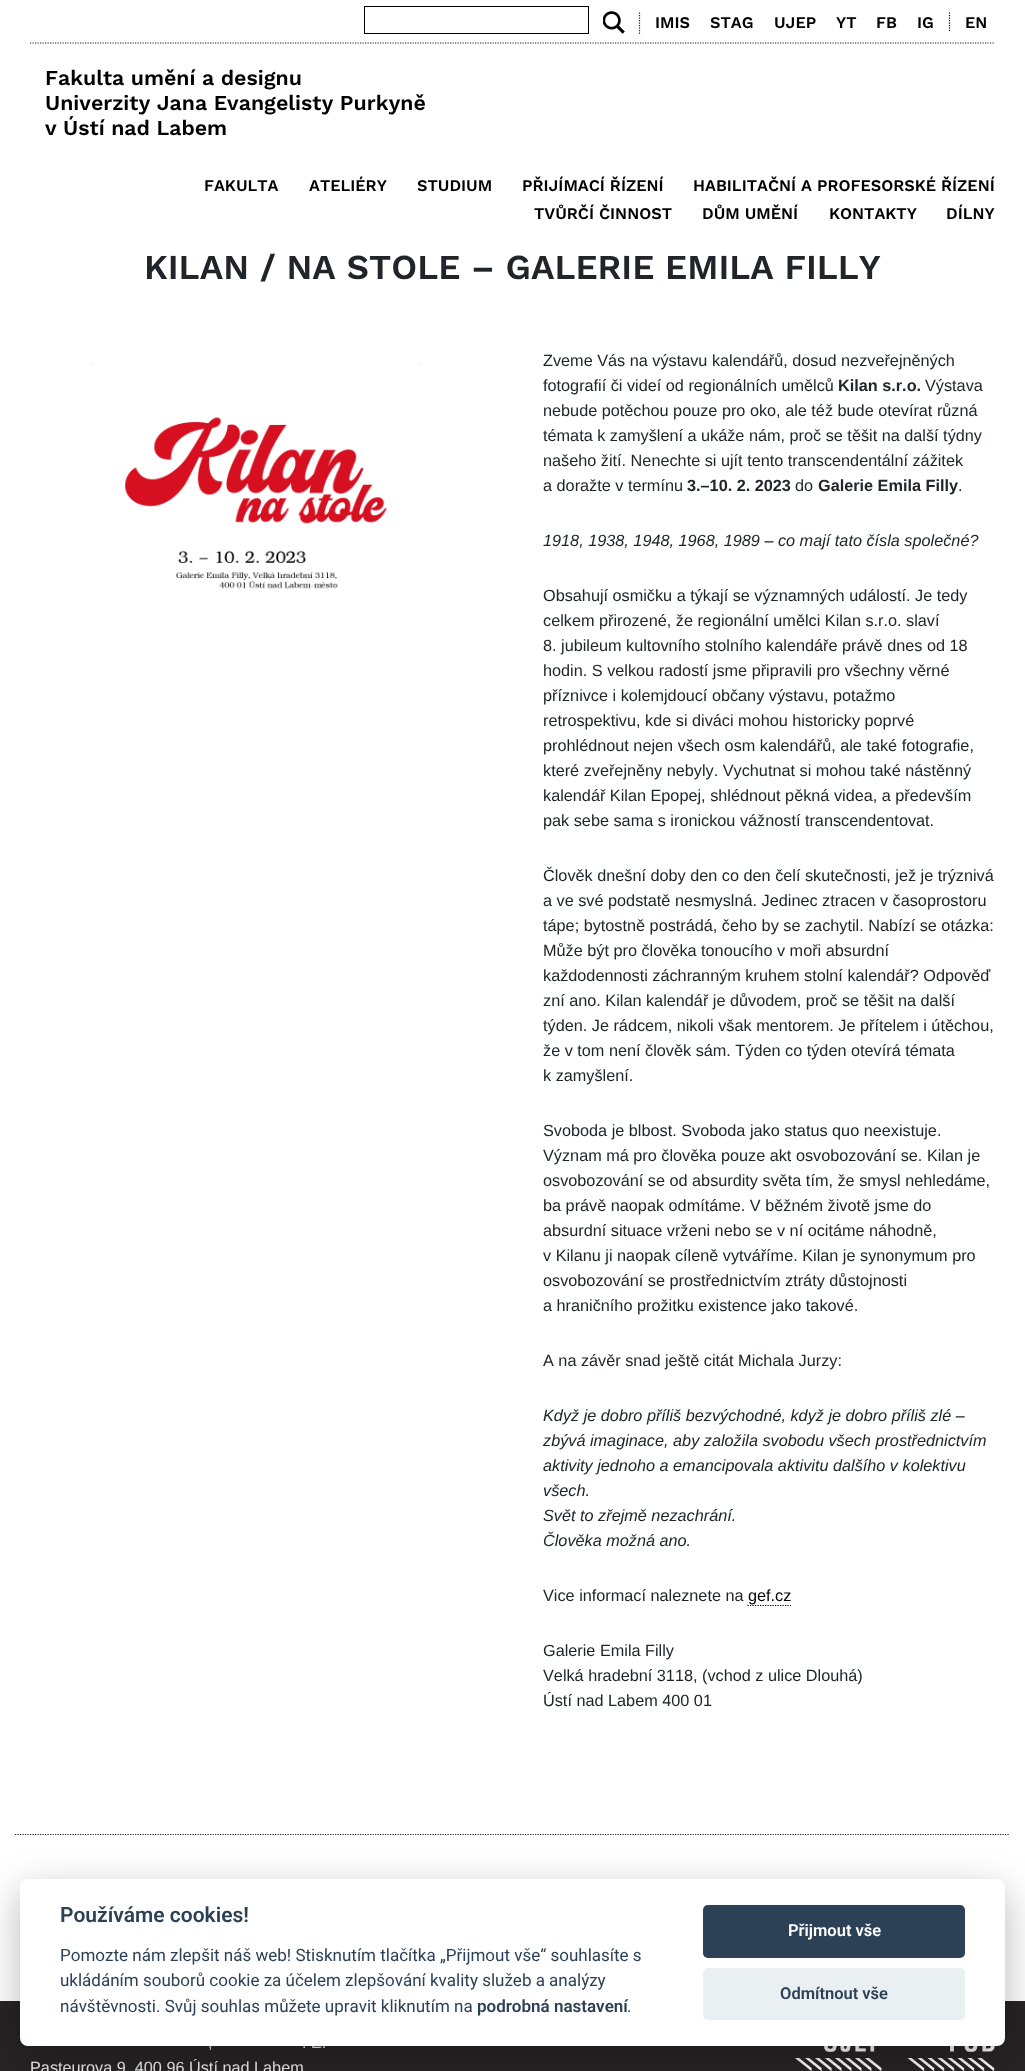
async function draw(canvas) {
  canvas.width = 1025
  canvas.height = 2071
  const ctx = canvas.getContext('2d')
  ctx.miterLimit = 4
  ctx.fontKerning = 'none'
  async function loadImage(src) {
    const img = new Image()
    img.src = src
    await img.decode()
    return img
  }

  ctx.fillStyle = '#fff'
  ctx.fillRect(0, 0, 1025, 2071)
  ctx.beginPath()
  ctx.moveTo(30, 43)
  ctx.lineTo(995, 43)
  ctx.strokeStyle = '#212529'
  ctx.lineWidth = 1.2
  ctx.setLineDash([1.25, 1.25])
  ctx.stroke()
  ctx.strokeStyle = '#000'
  ctx.lineWidth = 1
  ctx.setLineDash([])
  ctx.strokeRect(364.5, 6.5, 224, 27)
  ctx.drawImage(await loadImage('image0.png'), 603, 11, 22, 23)
  ctx.beginPath()
  ctx.moveTo(639.5, 12.5)
  ctx.lineTo(639.5, 34)
  ctx.strokeStyle = '#212529'
  ctx.lineWidth = 1.2
  ctx.setLineDash([1.25, 1.25])
  ctx.stroke()
  ctx.font = '600 16.25px Work Sans'
  ctx.fillStyle = '#000'
  ctx.fillText('IMIS', 655, 28)
  ctx.fillText('STAG', 710, 28)
  ctx.fillText('UJEP', 774, 28)
  ctx.fillText('YT', 836, 28)
  ctx.fillText('FB', 876, 28)
  ctx.fillText('IG', 917, 28)
  ctx.fillText('EN', 965, 28)
  ctx.beginPath()
  ctx.moveTo(949.5, 12.5)
  ctx.lineTo(949.5, 31)
  ctx.strokeStyle = '#000'
  ctx.stroke()
  ctx.font = '600 21.25px Work Sans'
  ctx.fillText('Fakulta umění a designu', 45, 85)
  ctx.fillText('Univerzity Jana Evangelisty Purkyně', 45, 110)
  ctx.fillText('v Ústí nad Labem', 45, 135)
  ctx.font = '600 16.25px Work Sans'
  ctx.fillText('FAKULTA', 204, 191)
  ctx.fillText('ATELIÉRY', 309, 191)
  ctx.fillText('STUDIUM', 417, 191)
  ctx.fillText('PŘIJÍMACÍ ŘÍZENÍ', 522, 191)
  ctx.fillText('HABILITAČNÍ A PROFESORSKÉ ŘÍZENÍ', 693, 191)
  ctx.fillText('TVŮRČÍ ČINNOST', 534, 219)
  ctx.fillText('DŮM UMĚNÍ', 702, 219)
  ctx.fillText('KONTAKTY', 829, 219)
  ctx.fillText('DÍLNY', 946, 219)
  ctx.font = '600 35px Work Sans'
  ctx.fillStyle = '#212529'
  ctx.fillText('KILAN / NA STOLE – GALERIE EMILA FILLY', 144, 279)
  ctx.drawImage(await loadImage('image1.png'), 89, 362, 334, 227)
  ctx.font = '16.25px Liberation Sans'
  ctx.fillText('Zveme Vás na výstavu kalendářů, dosud nezveřejněných', 543, 366)
  ctx.fillText('fotografií či videí od regionálních umělců', 543, 391)
  ctx.font = 'bold 16.25px Liberation Sans'
  ctx.fillText('Kilan s.r.o.', 838, 391)
  ctx.font = '16.25px Liberation Sans'
  ctx.fillText('Výstava', 925, 391)
  ctx.fillText('nebude potěchou pouze pro oko, ale též bude otevírat různá', 543, 416)
  ctx.fillText('témata k zamyšlení a ukáže nám, proč se těšit na další týdny', 543, 441)
  ctx.fillText('našeho žití. Nenechte si ujít tento transcendentální zážitek', 543, 466)
  ctx.fillText('a doražte v termínu', 543, 491)
  ctx.font = 'bold 16.25px Liberation Sans'
  ctx.fillText('3.–10. 2. 2023', 687, 491)
  ctx.font = '16.25px Liberation Sans'
  ctx.fillText('do', 795, 491)
  ctx.font = 'bold 16.25px Liberation Sans'
  ctx.fillText('Galerie Emila Filly', 818, 491)
  ctx.font = '16.25px Liberation Sans'
  ctx.fillText('.', 958, 491)
  ctx.font = 'italic 16.25px Liberation Sans'
  ctx.fillText('1918, 1938, 1948, 1968, 1989 – co mají tato čísla společné?', 543, 546)
  ctx.font = '16.25px Liberation Sans'
  ctx.fillText('Obsahují osmičku a týkají se významných událostí. Je tedy', 543, 601)
  ctx.fillText('celkem přirozené, že regionální umělci Kilan s.r.o. slaví', 543, 626)
  ctx.fillText('8. jubileum kultovního stolního kalendáře právě dnes od 18', 543, 651)
  ctx.fillText('hodin. S velkou radostí jsme připravili pro všechny věrné', 543, 676)
  ctx.fillText('příznivce i kolemjdoucí občany výstavu, potažmo', 543, 701)
  ctx.fillText('retrospektivu, kde si diváci mohou historicky poprvé', 543, 726)
  ctx.fillText('prohlédnout nejen všech osm kalendářů, ale také fotografie,', 543, 751)
  ctx.fillText('které zveřejněny nebyly. Vychutnat si mohou také nástěnný', 543, 776)
  ctx.fillText('kalendář Kilan Epopej, shlédnout pěkná videa, a především', 543, 801)
  ctx.fillText('pak sebe sama s ironickou vážností transcendentovat.', 543, 826)
  ctx.fillText('Člověk dnešní doby den co den čelí skutečnosti, jež je trýznivá', 543, 881)
  ctx.fillText('a ve své podstatě nesmyslná. Jedinec ztracen v časoprostoru', 543, 906)
  ctx.fillText('tápe; bytostně postrádá, čeho by se zachytil. Nabízí se otázka:', 543, 931)
  ctx.fillText('Může být pro člověka tonoucího v moři absurdní', 543, 956)
  ctx.fillText('každodennosti záchranným kruhem stolní kalendář? Odpověď', 543, 981)
  ctx.fillText('zní ano. Kilan kalendář je důvodem, proč se těšit na další', 543, 1006)
  ctx.fillText('týden. Je rádcem, nikoli však mentorem. Je přítelem i útěchou,', 543, 1031)
  ctx.fillText('že v tom není člověk sám. Týden co týden otevírá témata', 543, 1056)
  ctx.fillText('k zamyšlení.', 543, 1081)
  ctx.fillText('Svoboda je blbost. Svoboda jako status quo neexistuje.', 543, 1136)
  ctx.fillText('Význam má pro člověka pouze akt osvobozování se. Kilan je', 543, 1161)
  ctx.fillText('osvobozování se od absurdity světa tím, že smysl nehledáme,', 543, 1186)
  ctx.fillText('ba právě naopak odmítáme. V běžném životě jsme do', 543, 1211)
  ctx.fillText('absurdní situace vrženi nebo se v ní ocitáme náhodně,', 543, 1236)
  ctx.fillText('v Kilanu ji naopak cíleně vytváříme. Kilan je synonymum pro', 543, 1261)
  ctx.fillText('osvobozování se prostřednictvím ztráty důstojnosti', 543, 1286)
  ctx.fillText('a hraničního prožitku existence jako takové.', 543, 1311)
  ctx.fillText('A na závěr snad ještě citát Michala Jurzy:', 543, 1366)
  ctx.font = 'italic 16.25px Liberation Sans'
  ctx.fillText('Když je dobro příliš bezvýchodné, když je dobro příliš zlé –', 543, 1421)
  ctx.fillText('zbývá imaginace, aby založila svobodu všech prostřednictvím', 543, 1446)
  ctx.fillText('aktivity jednoho a emancipovala aktivitu dalšího v kolektivu', 543, 1471)
  ctx.fillText('všech.', 543, 1496)
  ctx.fillText('Svět to zřejmě nezachrání.', 543, 1521)
  ctx.fillText('Člověka možná ano.', 543, 1546)
  ctx.font = '16.25px Liberation Sans'
  ctx.fillText('Vice informací naleznete na', 543, 1601)
  ctx.beginPath()
  ctx.moveTo(747.5, 1605.5)
  ctx.lineTo(791, 1605.5)
  ctx.stroke()
  ctx.fillStyle = '#000'
  ctx.fillText('gef.cz', 748, 1601)
  ctx.fillStyle = '#212529'
  ctx.fillText('Galerie Emila Filly', 543, 1656)
  ctx.fillText('Velká hradební 3118, (vchod z ulice Dlouhá)', 543, 1681)
  ctx.fillText('Ústí nad Labem 400 01', 543, 1706)
  ctx.beginPath()
  ctx.moveTo(15, 1834.5)
  ctx.lineTo(1010, 1834.5)
  ctx.strokeStyle = '#212529'
  ctx.stroke()
  ctx.fillStyle = '#272425'
  ctx.fillRect(0, 2001, 1025, 70)
  ctx.fillStyle = '#eee'
  ctx.fillText('. E.', 302, 2048)
  ctx.fillText(',', 208, 2048)
  ctx.fillText('Pasteurova 9, 400 96 Ústí nad Labem', 30, 2073)
  ctx.drawImage(await loadImage('image2.png'), 795, 2046, 87, 25)
  ctx.drawImage(await loadImage('image3.png'), 907, 2046, 88, 25)
  ctx.fillStyle = '#02020347'
  ctx.filter = 'blur(19px)'
  ctx.beginPath()
  ctx.roundRect(20, 1891, 985, 168, 8)
  ctx.fill()
  ctx.filter = 'none'
  ctx.fillStyle = '#fff'
  ctx.beginPath()
  ctx.roundRect(20, 1879, 985, 167, 8)
  ctx.fill()
  ctx.font = '600 21px Roboto'
  ctx.fillStyle = '#2d4156'
  ctx.fillText('Používáme cookies!', 60, 1922)
  ctx.font = '17px Roboto'
  ctx.fillText('Pomozte nám zlepšit náš web! Stisknutím tlačítka „Přijmout vše“ souhlasíte s', 60, 1961)
  ctx.fillText('ukládáním souborů cookie za účelem zlepšování kvality služeb a analýzy', 60, 1986)
  ctx.fillText('návštěvnosti. Svůj souhlas můžete upravit kliknutím na', 60, 2012)
  ctx.font = '600 17px Roboto'
  ctx.fillText('podrobná nastavení', 477, 2012)
  ctx.font = '17px Roboto'
  ctx.fillText('.', 627, 2012)
  ctx.beginPath()
  ctx.roundRect(703, 1905, 262, 53, 5)
  ctx.fill()
  ctx.font = '600 16.5px Roboto'
  ctx.fillStyle = '#fff'
  ctx.fillText('Přijmout vše', 788, 1936)
  ctx.fillStyle = '#eaeff2'
  ctx.beginPath()
  ctx.roundRect(703, 1968, 262, 52, 5)
  ctx.fill()
  ctx.fillStyle = '#2d4156'
  ctx.fillText('Odmítnout vše', 780, 1999)
}

draw(document.querySelector('canvas'))
